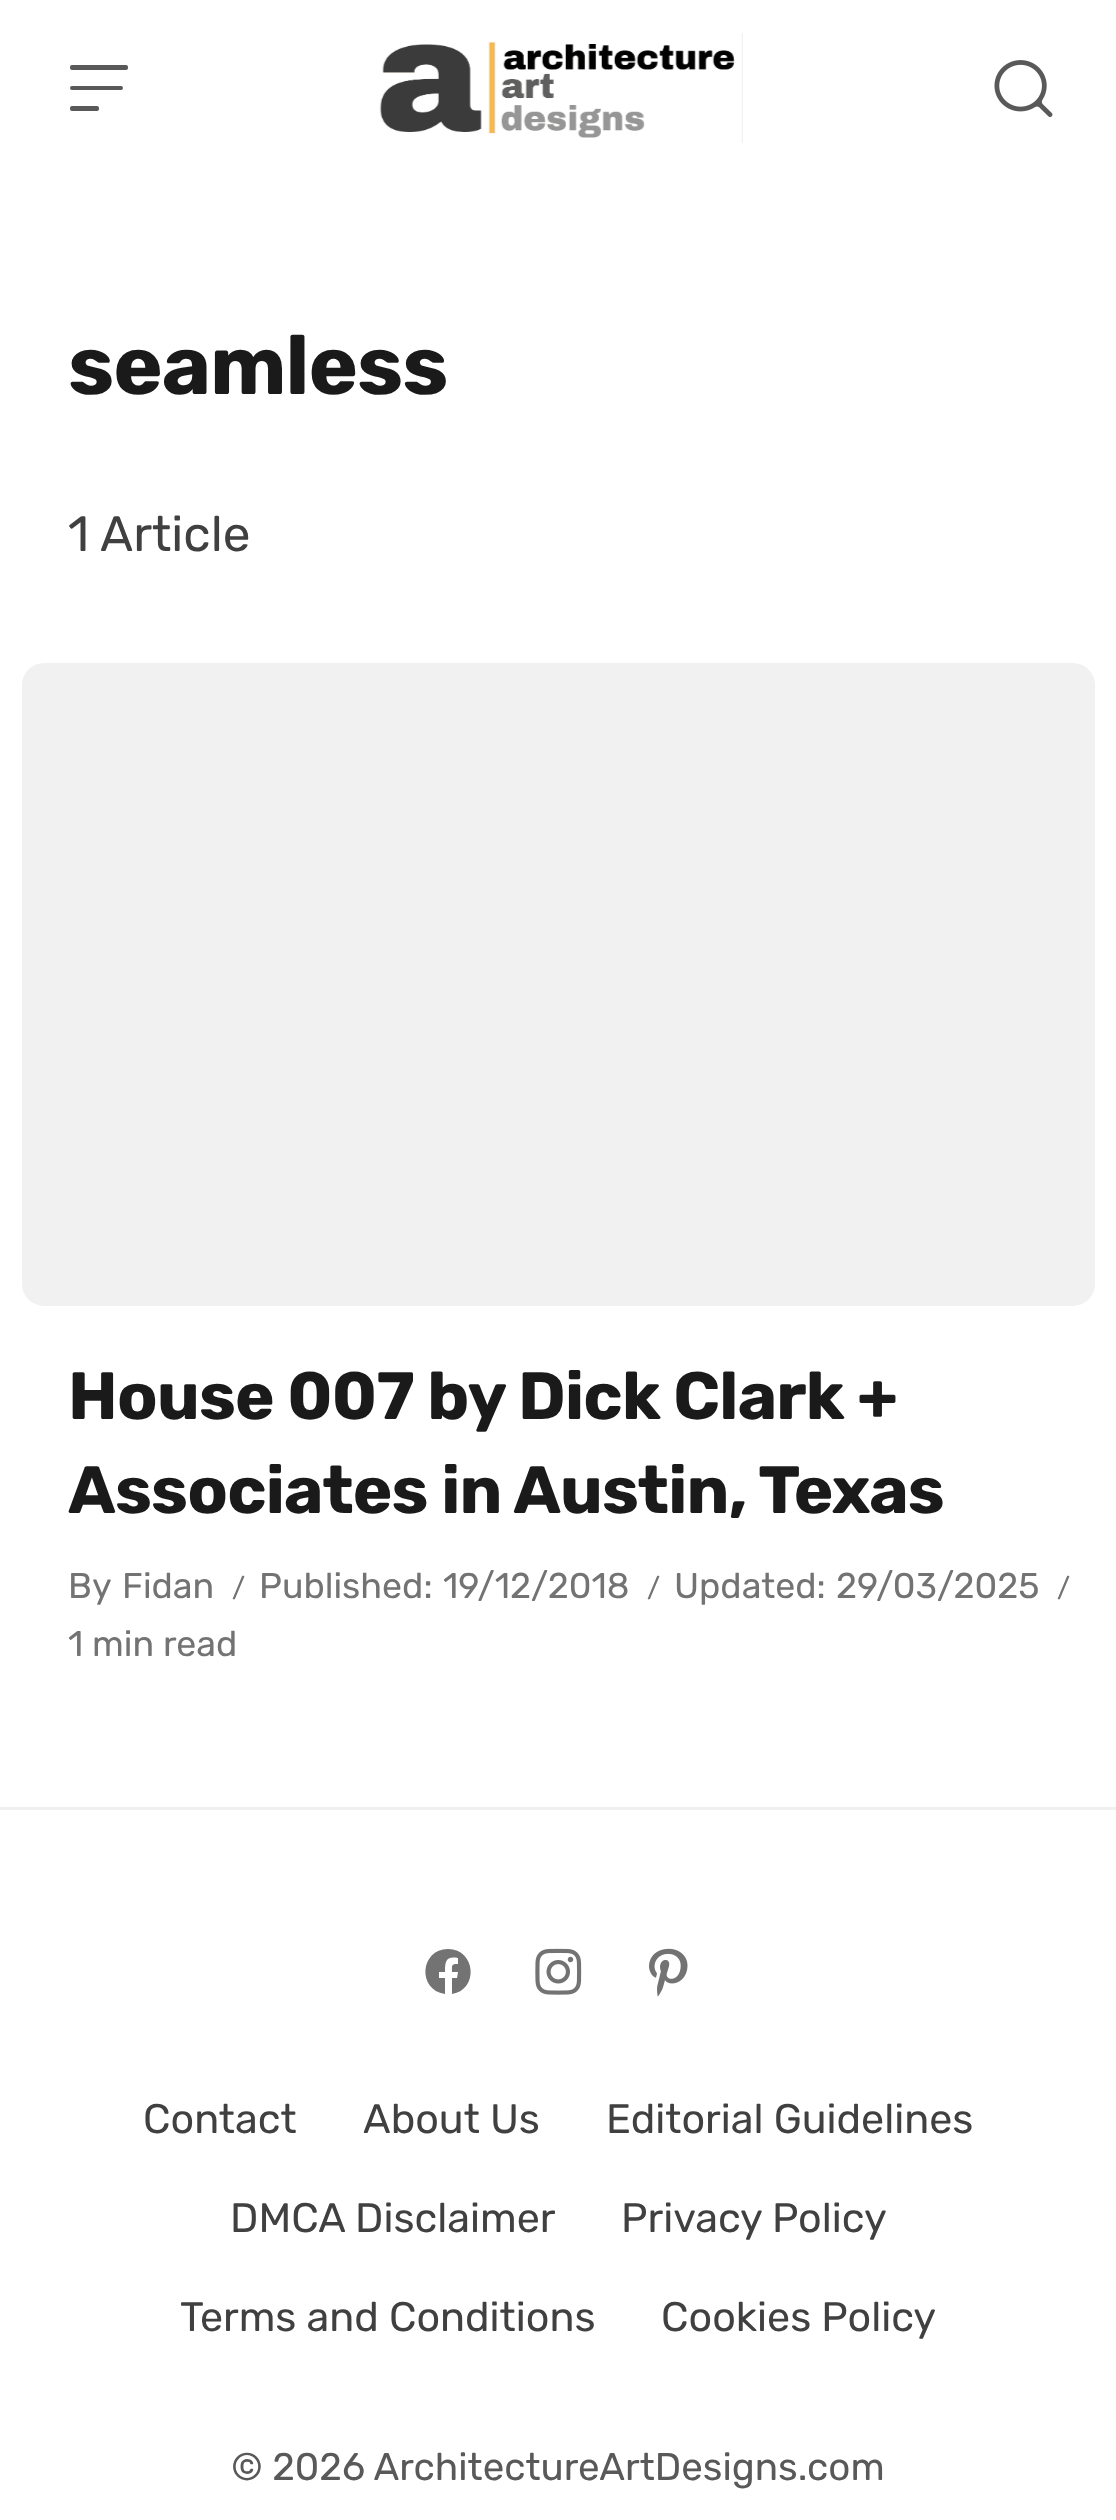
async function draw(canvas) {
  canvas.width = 1116
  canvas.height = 2520
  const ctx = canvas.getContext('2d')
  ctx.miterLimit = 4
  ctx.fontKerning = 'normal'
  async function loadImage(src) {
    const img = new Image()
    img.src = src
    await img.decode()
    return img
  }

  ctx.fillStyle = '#fff'
  ctx.fillRect(0, 0, 1116, 2520)
  ctx.fillStyle = '#595959'
  ctx.beginPath()
  ctx.roundRect(70, 65, 58, 5, 2)
  ctx.fill()
  ctx.beginPath()
  ctx.roundRect(70, 86, 53, 4, 2)
  ctx.fill()
  ctx.beginPath()
  ctx.roundRect(70, 106, 29, 5, 2)
  ctx.fill()
  ctx.drawImage(await loadImage('image0.png'), 379, 33, 364, 110)
  ctx.drawImage(await loadImage('image1.png'), 994, 60, 59, 57)
  ctx.letterSpacing = '-1px'
  ctx.font = 'bold 83.5px Rubik'
  ctx.fillStyle = '#1a1a1a'
  ctx.fillText('seamless', 68, 394)
  ctx.letterSpacing = '0px'
  ctx.font = '49.5px Rubik'
  ctx.fillStyle = '#404040'
  ctx.fillText('1', 68, 551)
  ctx.fillText('Article', 100, 551)
  ctx.fillStyle = '#f1f1f1'
  ctx.beginPath()
  ctx.roundRect(22, 663, 1073, 643, 22)
  ctx.fill()
  ctx.letterSpacing = '-0.8px'
  ctx.font = 'bold 66.75px Rubik'
  ctx.fillStyle = '#1a1a1a'
  ctx.fillText('House 007 by Dick Clark +', 68, 1419)
  ctx.fillText('Associates in Austin, Texas', 68, 1513)
  ctx.letterSpacing = '0px'
  ctx.font = '35.75px Rubik'
  ctx.fillStyle = '#737373'
  ctx.fillText('By', 68, 1598)
  ctx.fillText('Fidan', 122, 1598)
  ctx.font = '27px Rubik'
  ctx.fillText('/', 232, 1597)
  ctx.font = '35.75px Rubik'
  ctx.fillText('Published:', 259, 1598)
  ctx.fillText('19/12/2018', 443, 1598)
  ctx.font = '27px Rubik'
  ctx.fillText('/', 647, 1597)
  ctx.font = '35.75px Rubik'
  ctx.fillText('Updated:', 674, 1598)
  ctx.fillText('29/03/2025', 836, 1598)
  ctx.font = '27px Rubik'
  ctx.fillText('/', 1057, 1597)
  ctx.font = '35.75px Rubik'
  ctx.fillText('1 min read', 68, 1656)
  ctx.fillStyle = '#f0f0f0'
  ctx.fillRect(0, 1807, 1116, 3)
  ctx.fillStyle = '#737373'
  ctx.beginPath()
  ctx.moveTo(448, 1949)
  ctx.bezierCurveTo(420, 1949, 417, 1990, 445, 1994)
  ctx.lineTo(445, 1978)
  ctx.lineTo(439, 1978)
  ctx.lineTo(439, 1972)
  ctx.lineTo(445, 1972)
  ctx.bezierCurveTo(445, 1961, 446, 1956, 458, 1958)
  ctx.lineTo(458, 1964)
  ctx.bezierCurveTo(451, 1964, 452, 1965, 452, 1972)
  ctx.lineTo(458, 1972)
  ctx.lineTo(457, 1978)
  ctx.lineTo(452, 1978)
  ctx.lineTo(452, 1994)
  ctx.bezierCurveTo(479, 1990, 476, 1949, 448, 1949)
  ctx.closePath()
  ctx.fill()
  ctx.drawImage(await loadImage('image2.png'), 535, 1948, 47, 47)
  ctx.drawImage(await loadImage('image3.png'), 649, 1948, 39, 49)
  ctx.font = '41.25px Rubik'
  ctx.fillStyle = '#404040'
  ctx.fillText('Contact', 143, 2133)
  ctx.fillText('About Us', 363, 2133)
  ctx.fillText('Editorial Guidelines', 606, 2133)
  ctx.fillText('DMCA Disclaimer', 230, 2232)
  ctx.fillText('Privacy Policy', 621, 2232)
  ctx.fillText('Terms and Conditions', 180, 2331)
  ctx.fillText('Cookies Policy', 661, 2331)
  ctx.font = '38.5px Rubik'
  ctx.fillStyle = '#595959'
  ctx.fillText('© 2026 ArchitectureArtDesigns.com', 231, 2480)
}

draw(document.querySelector('canvas'))
